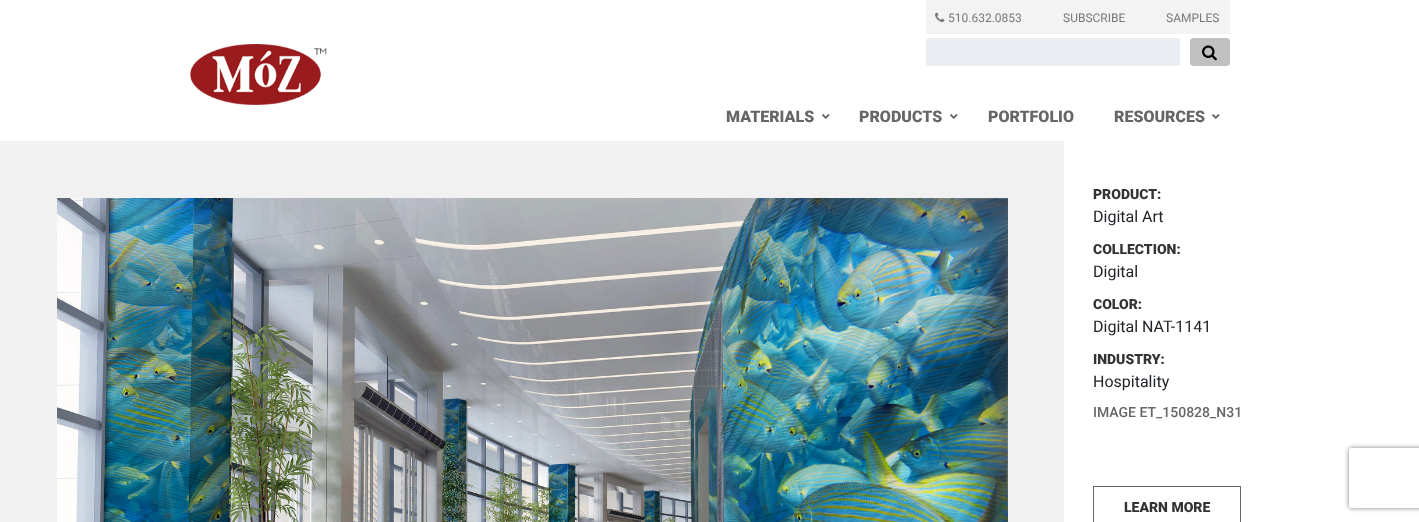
async function draw(canvas) {
  canvas.width = 1419
  canvas.height = 522
  const ctx = canvas.getContext('2d')
  ctx.miterLimit = 4
  ctx.fontKerning = 'normal'
  async function loadImage(src) {
    const img = new Image()
    img.src = src
    await img.decode()
    return img
  }

  ctx.fillStyle = '#fff'
  ctx.fillRect(0, 0, 1419, 522)
  ctx.fillStyle = '#f3f3f3'
  ctx.fillRect(926, 0, 304, 34)
  ctx.drawImage(await loadImage('image0.png'), 935, 12, 10, 10)
  ctx.font = '12px Roboto'
  ctx.fillStyle = '#787878'
  ctx.fillText('510.632.0853', 948, 22)
  ctx.fillText('SUBSCRIBE', 1063, 22)
  ctx.fillText('SAMPLES', 1166, 22)
  ctx.fillStyle = '#eaedf2'
  ctx.beginPath()
  ctx.roundRect(926, 38, 254, 28, 3)
  ctx.fill()
  ctx.fillStyle = '#c0c0c0'
  ctx.beginPath()
  ctx.roundRect(1190, 38, 40, 28, 4)
  ctx.fill()
  ctx.drawImage(await loadImage('image1.png'), 1202, 45, 15, 16)
  ctx.drawImage(await loadImage('image2.png'), 190, 44, 137, 61)
  ctx.font = '900 16px Roboto'
  ctx.fillStyle = '#666'
  ctx.fillText('MATERIALS', 726, 122)
  ctx.drawImage(await loadImage('image3.png'), 822, 114, 8, 5)
  ctx.fillText('PRODUCTS', 859, 122)
  ctx.drawImage(await loadImage('image3.png'), 950, 114, 8, 5)
  ctx.fillText('PORTFOLIO', 988, 122)
  ctx.fillText('RESOURCES', 1114, 122)
  ctx.drawImage(await loadImage('image3.png'), 1212, 114, 8, 5)
  ctx.fillStyle = '#f1f1f1'
  ctx.fillRect(0, 141, 1064, 381)
  ctx.drawImage(await loadImage('image4.png'), 57, 198, 951, 324)
  ctx.font = '900 14px Roboto'
  ctx.fillStyle = '#333'
  ctx.fillText('PRODUCT:', 1093, 199)
  ctx.font = '16px Roboto'
  ctx.fillStyle = '#212529'
  ctx.fillText('Digital Art', 1093, 222)
  ctx.font = '900 14px Roboto'
  ctx.fillStyle = '#333'
  ctx.fillText('COLLECTION:', 1093, 254)
  ctx.font = '16px Roboto'
  ctx.fillStyle = '#212529'
  ctx.fillText('Digital', 1093, 277)
  ctx.font = '900 14px Roboto'
  ctx.fillStyle = '#333'
  ctx.fillText('COLOR:', 1093, 309)
  ctx.font = '16px Roboto'
  ctx.fillStyle = '#212529'
  ctx.fillText('Digital NAT-1141', 1093, 332)
  ctx.font = '900 14px Roboto'
  ctx.fillStyle = '#333'
  ctx.fillText('INDUSTRY:', 1093, 364)
  ctx.font = '16px Roboto'
  ctx.fillStyle = '#212529'
  ctx.fillText('Hospitality', 1093, 387)
  ctx.font = '500 14px Roboto'
  ctx.fillStyle = '#666'
  ctx.fillText('IMAGE ET_150828_N31', 1093, 417)
  ctx.strokeStyle = '#666'
  ctx.strokeRect(1093.5, 486.5, 147, 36)
  ctx.font = '900 14px Roboto'
  ctx.fillStyle = '#333'
  ctx.fillText('LEARN MORE', 1124, 512)
  ctx.save()
  ctx.beginPath()
  ctx.moveTo(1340, 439)
  ctx.lineTo(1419, 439)
  ctx.lineTo(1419, 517)
  ctx.lineTo(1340, 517)
  ctx.closePath()
  ctx.moveTo(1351, 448)
  ctx.lineTo(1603, 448)
  ctx.bezierCurveTo(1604, 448, 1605, 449, 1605, 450)
  ctx.lineTo(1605, 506)
  ctx.bezierCurveTo(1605, 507, 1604, 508, 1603, 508)
  ctx.lineTo(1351, 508)
  ctx.bezierCurveTo(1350, 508, 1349, 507, 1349, 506)
  ctx.lineTo(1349, 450)
  ctx.bezierCurveTo(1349, 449, 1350, 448, 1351, 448)
  ctx.closePath()
  ctx.clip('evenodd')
  ctx.fillStyle = '#808080'
  ctx.filter = 'blur(2.5px)'
  ctx.beginPath()
  ctx.roundRect(1349, 448, 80, 60, 2)
  ctx.fill()
  ctx.filter = 'none'
  ctx.restore()
}

draw(document.querySelector('canvas'))
